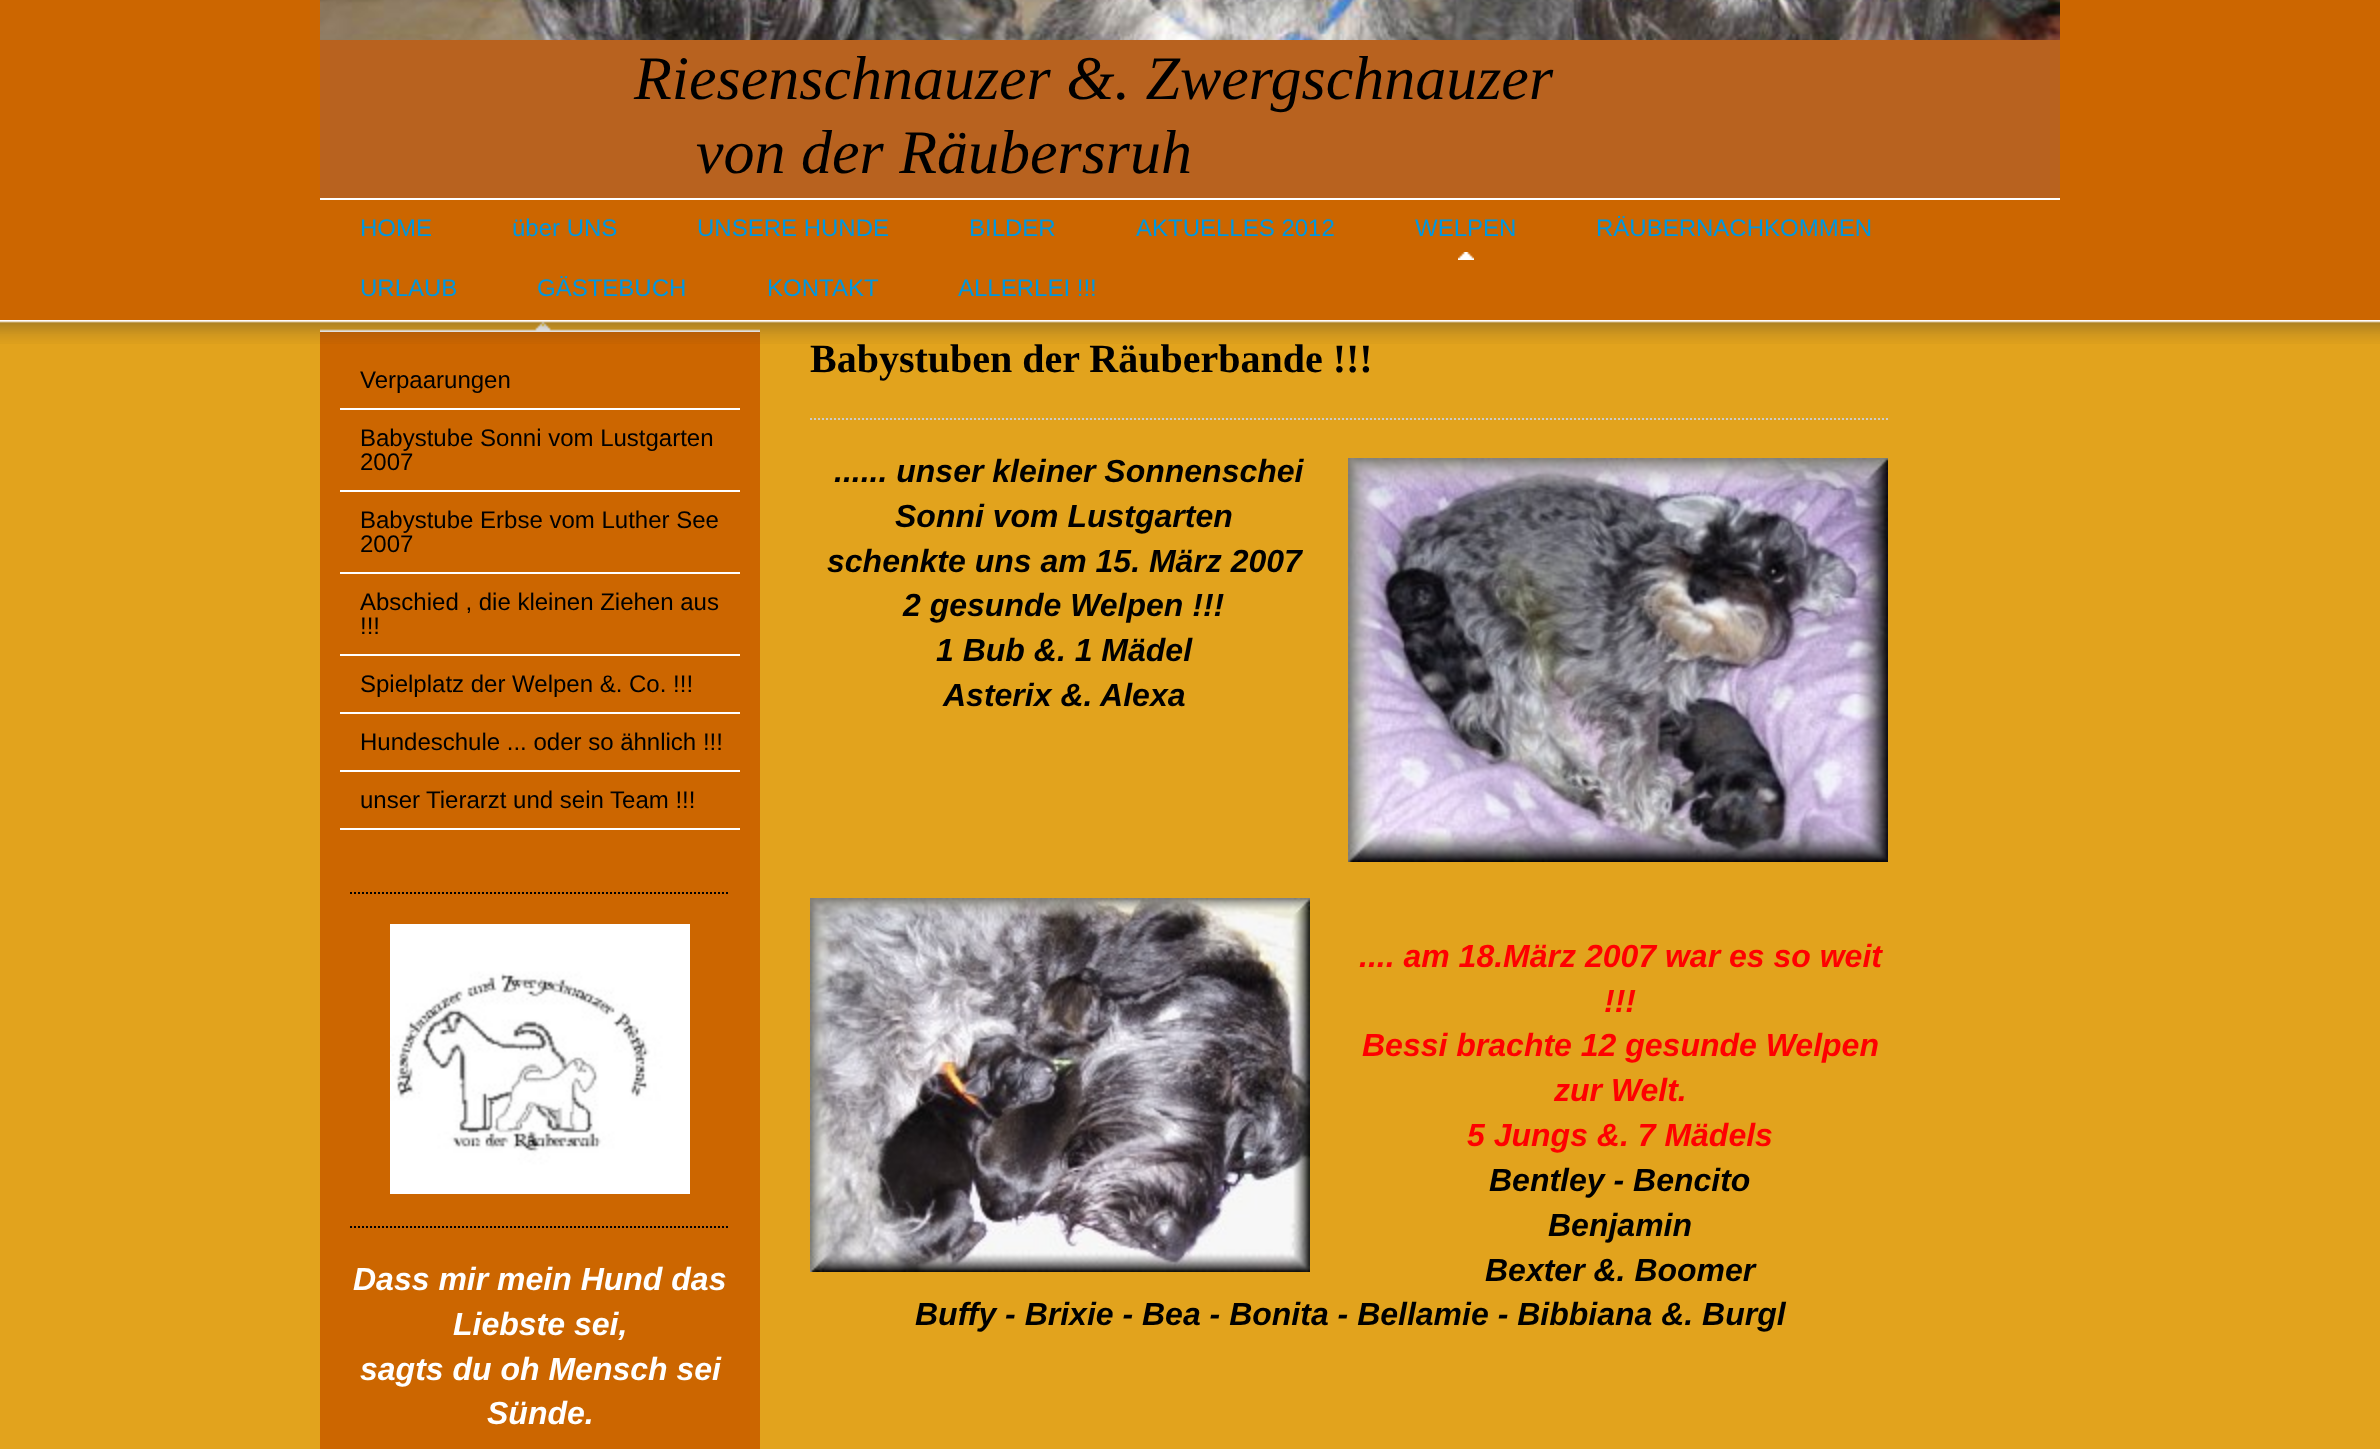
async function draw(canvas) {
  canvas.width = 2380
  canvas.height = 1449
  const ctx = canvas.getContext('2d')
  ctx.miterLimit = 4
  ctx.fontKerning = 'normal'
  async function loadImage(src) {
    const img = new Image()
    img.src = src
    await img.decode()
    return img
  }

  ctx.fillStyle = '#e2a31d'
  ctx.fillRect(0, 0, 2380, 1449)
  ctx.fillStyle = '#c60'
  ctx.fillRect(0, 0, 2380, 320)
  ctx.fillStyle = '#fff'
  ctx.fillRect(320, 198, 1740, 2)
  ctx.drawImage(await loadImage('image0.png'), 320, 0, 1740, 40)
  ctx.fillStyle = '#b8621f'
  ctx.fillRect(320, 40, 1740, 158)
  ctx.font = 'italic 62px Liberation Serif'
  ctx.fillStyle = '#000'
  ctx.fillText('Riesenschnauzer &. Zwergschnauzer', 634, 99)
  ctx.fillText('von der Räubersruh', 696, 173)
  ctx.font = '24px Liberation Sans'
  ctx.fillStyle = '#0097df'
  ctx.fillText('HOME', 360, 236)
  ctx.fillText('über UNS', 512, 236)
  ctx.fillText('UNSERE HUNDE', 697, 236)
  ctx.fillText('BILDER', 969, 236)
  ctx.fillText('AKTUELLES 2012', 1136, 236)
  ctx.drawImage(await loadImage('image1.png'), 1458, 252, 16, 8)
  ctx.fillText('WELPEN', 1415, 236)
  ctx.fillText('RÄUBERNACHKOMMEN', 1596, 236)
  ctx.fillText('URLAUB', 360, 296)
  ctx.fillText('GÄSTEBUCH', 537, 296)
  ctx.fillText('KONTAKT', 767, 296)
  ctx.fillText('ALLERLEI !!!', 958, 296)
  ctx.drawImage(await loadImage('image3.png'), 320, 321, 440, 11)
  ctx.fillStyle = '#c60'
  ctx.fillRect(320, 332, 440, 1117)
  ctx.drawImage(await loadImage('image2.png'), 0, 320, 2380, 24)
  ctx.fillStyle = '#fff'
  ctx.fillRect(340, 408, 400, 2)
  ctx.fillStyle = '#000'
  ctx.fillText('Verpaarungen', 360, 388)
  ctx.fillStyle = '#fff'
  ctx.fillRect(340, 490, 400, 2)
  ctx.fillStyle = '#000'
  ctx.fillText('Babystube Sonni vom Lustgarten', 360, 446)
  ctx.fillText('2007', 360, 470)
  ctx.fillStyle = '#fff'
  ctx.fillRect(340, 572, 400, 2)
  ctx.fillStyle = '#000'
  ctx.fillText('Babystube Erbse vom Luther See', 360, 528)
  ctx.fillText('2007', 360, 552)
  ctx.fillStyle = '#fff'
  ctx.fillRect(340, 654, 400, 2)
  ctx.fillStyle = '#000'
  ctx.fillText('Abschied , die kleinen Ziehen aus', 360, 610)
  ctx.fillText('!!!', 360, 634)
  ctx.fillStyle = '#fff'
  ctx.fillRect(340, 712, 400, 2)
  ctx.fillStyle = '#000'
  ctx.fillText('Spielplatz der Welpen &. Co. !!!', 360, 692)
  ctx.fillStyle = '#fff'
  ctx.fillRect(340, 770, 400, 2)
  ctx.fillStyle = '#000'
  ctx.fillText('Hundeschule ... oder so ähnlich !!!', 360, 750)
  ctx.fillStyle = '#fff'
  ctx.fillRect(340, 828, 400, 2)
  ctx.fillStyle = '#000'
  ctx.fillText('unser', 360, 808)
  ctx.fillText('Tierarzt und sein Team !!!', 426, 808)
  ctx.beginPath()
  ctx.moveTo(350, 893)
  ctx.lineTo(730, 893)
  ctx.strokeStyle = '#000'
  ctx.lineWidth = 2
  ctx.setLineDash([2, 2])
  ctx.stroke()
  ctx.drawImage(await loadImage('image4.png'), 390, 924, 300, 270)
  ctx.beginPath()
  ctx.moveTo(350, 1227)
  ctx.lineTo(730, 1227)
  ctx.stroke()
  ctx.font = 'italic bold 32px Liberation Sans'
  ctx.fillStyle = '#fff'
  ctx.fillText('Dass mir mein Hund das', 353, 1290)
  ctx.fillText('Liebste sei,', 453, 1335)
  ctx.fillText('sagts du oh Mensch sei', 360, 1380)
  ctx.fillText('Sünde.', 487, 1424)
  ctx.font = 'bold 40px Liberation Serif'
  ctx.fillStyle = '#000'
  ctx.fillText('Babystuben der Räuberbande !!!', 810, 372)
  ctx.beginPath()
  ctx.moveTo(810, 419)
  ctx.lineTo(1890, 419)
  ctx.strokeStyle = '#ccc'
  ctx.stroke()
  ctx.font = 'italic bold 32px Liberation Sans'
  ctx.fillText('...... unser kleiner Sonnenschei', 834, 482)
  ctx.fillText('Sonni vom Lustgarten', 895, 527)
  ctx.fillText('schenkte uns am 15. März 2007', 827, 572)
  ctx.fillText('2 gesunde Welpen !!!', 903, 616)
  ctx.fillText('1 Bub &. 1 Mädel', 936, 661)
  ctx.fillText('Asterix &. Alexa', 943, 706)
  ctx.drawImage(await loadImage('image5.png'), 1348, 458, 540, 404)
  ctx.drawImage(await loadImage('image6.png'), 810, 898, 500, 374)
  ctx.fillStyle = '#f00'
  ctx.fillText('.... am 18.März 2007 war es so weit', 1359, 967)
  ctx.fillText('!!!', 1604, 1012)
  ctx.fillText('Bessi brachte 12 gesunde Welpen', 1362, 1056)
  ctx.fillText('zur Welt.', 1554, 1101)
  ctx.fillText('5 Jungs &. 7 Mädels', 1467, 1146)
  ctx.fillStyle = '#000'
  ctx.fillText('Bentley - Bencito', 1489, 1191)
  ctx.fillText('Benjamin', 1548, 1236)
  ctx.fillText('Bexter &. Boomer', 1485, 1281)
  ctx.fillText('Buffy - Brixie - Bea - Bonita - Bellamie - Bibbiana &. Burgl', 915, 1325)
}

draw(document.querySelector('canvas'))
